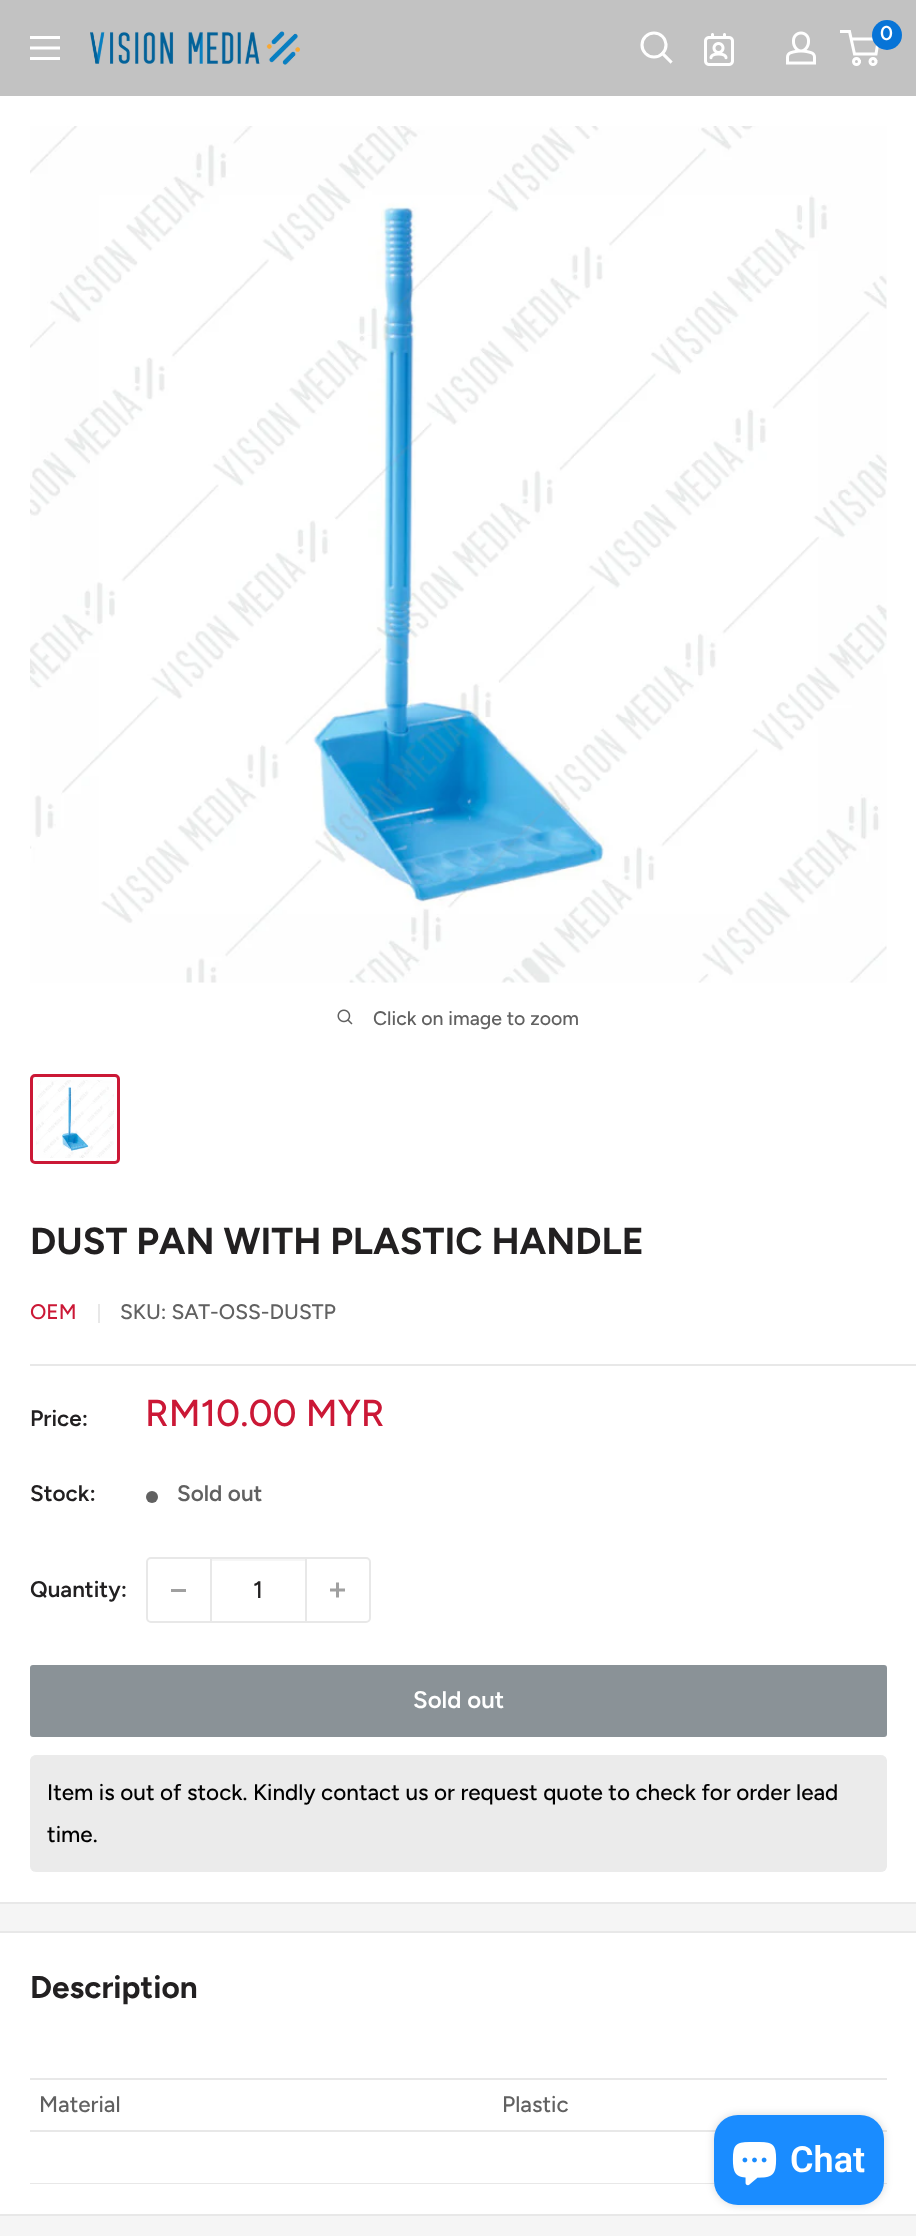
async function draw(canvas) {
  canvas.width = 916
  canvas.height = 2236
  const ctx = canvas.getContext('2d')
  ctx.miterLimit = 4
  ctx.fontKerning = 'normal'
  async function loadImage(src) {
    const img = new Image()
    img.src = src
    await img.decode()
    return img
  }

  ctx.fillStyle = '#f5f5f5'
  ctx.fillRect(0, 0, 916, 2236)
  ctx.fillStyle = '#c2c2c2'
  ctx.fillRect(0, 0, 916, 96)
  ctx.drawImage(await loadImage('image0.png'), 30, 36, 30, 24)
  ctx.drawImage(await loadImage('image1.png'), 90, 31, 210, 34)
  ctx.beginPath()
  ctx.moveTo(670.5, 61.5)
  ctx.lineTo(662.5, 53.5)
  ctx.strokeStyle = '#fff'
  ctx.lineWidth = 3.1
  ctx.lineCap = 'square'
  ctx.stroke()
  ctx.beginPath()
  ctx.arc(654, 45, 12, 0, 2 * Math.PI)
  ctx.stroke()
  ctx.drawImage(await loadImage('image2.png'), 704, 33, 30, 33)
  ctx.drawImage(await loadImage('image3.png'), 786, 31, 30, 34)
  ctx.beginPath()
  ctx.arc(856.5, 61.5, 3, 0, 2 * Math.PI)
  ctx.lineWidth = 3
  ctx.stroke()
  ctx.beginPath()
  ctx.arc(873, 61.5, 3, 0, 2 * Math.PI)
  ctx.stroke()
  ctx.beginPath()
  ctx.moveTo(851, 39)
  ctx.lineTo(878.5, 39)
  ctx.lineTo(876, 54)
  ctx.lineTo(854.5, 54)
  ctx.lineTo(849.5, 31.5)
  ctx.lineTo(840, 31.5)
  ctx.lineCap = 'butt'
  ctx.stroke()
  ctx.fillStyle = '#0774d7'
  ctx.beginPath()
  ctx.arc(887, 35, 15, 0, 2 * Math.PI)
  ctx.fill()
  ctx.font = '600 20px Figtree'
  ctx.fillStyle = '#fff'
  ctx.fillText('0', 880, 40)
  ctx.fillRect(0, 96, 916, 1116)
  ctx.drawImage(await loadImage('image4.png'), 30, 126, 857, 857)
  ctx.drawImage(await loadImage('image5.png'), 337, 1009, 16, 16)
  ctx.font = '500 19.5px Figtree'
  ctx.fillStyle = '#616161'
  ctx.fillText('Click on image to zoom', 373, 1025)
  ctx.beginPath()
  ctx.roundRect(31.5, 1075.5, 87, 87, 3.5)
  ctx.strokeStyle = '#cb1836'
  ctx.stroke()
  ctx.drawImage(await loadImage('image6.png'), 36, 1080, 78, 78)
  ctx.fillStyle = '#fff'
  ctx.beginPath()
  ctx.moveTo(0, 1212)
  ctx.lineTo(0, 1214)
  ctx.lineTo(916, 1214)
  ctx.lineTo(916, 1902)
  ctx.lineTo(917, 1902)
  ctx.lineTo(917, 1212)
  ctx.closePath()
  ctx.fill()
  ctx.fillRect(0, 1214, 916, 688)
  ctx.fillStyle = '#e8e8e8'
  ctx.fillRect(0, 1902, 916, 2)
  ctx.font = 'bold 37.5px Figtree'
  ctx.fillStyle = '#222021'
  ctx.fillText('DUST PAN WITH PLASTIC HANDLE', 30, 1254)
  ctx.font = '500 21px Figtree'
  ctx.fillStyle = '#cb1836'
  ctx.fillText('OEM', 30, 1319)
  ctx.fillStyle = '#e8e8e8'
  ctx.fillRect(98, 1304, 2, 19)
  ctx.fillStyle = '#616161'
  ctx.fillText('SKU: SAT-OSS-DUSTP', 120, 1319)
  ctx.fillStyle = '#e8e8e8'
  ctx.fillRect(30, 1364, 886, 2)
  ctx.font = '600 22.5px Figtree'
  ctx.fillStyle = '#222021'
  ctx.fillText('Price:', 30, 1426)
  ctx.font = '500 37.5px Figtree'
  ctx.fillStyle = '#cb1836'
  ctx.fillText('RM10.00 MYR', 145, 1426)
  ctx.font = '600 22.5px Figtree'
  ctx.fillStyle = '#222021'
  ctx.fillText('Stock:', 30, 1501)
  ctx.fillStyle = '#616161'
  ctx.beginPath()
  ctx.arc(152, 1497, 6, 0, 2 * Math.PI)
  ctx.fill()
  ctx.fillText('Sold out', 177, 1501)
  ctx.fillStyle = '#222021'
  ctx.fillText('Quantity:', 30, 1597)
  ctx.beginPath()
  ctx.roundRect(147, 1558, 223, 64, 4)
  ctx.strokeStyle = '#e8e8e8'
  ctx.lineWidth = 2
  ctx.stroke()
  ctx.fillStyle = '#a0a0a0'
  ctx.fillRect(171, 1589, 15, 3)
  ctx.fillStyle = '#f6f6f6'
  ctx.fillRect(212, 1559, 93, 2)
  ctx.fillStyle = '#e8e8e8'
  ctx.fillRect(305, 1559, 2, 63)
  ctx.fillRect(210, 1559, 2, 63)
  ctx.font = '500 24px Figtree'
  ctx.fillStyle = '#222021'
  ctx.fillText('1', 253, 1598)
  ctx.drawImage(await loadImage('image7.png'), 330, 1582, 15, 16)
  ctx.fillStyle = '#8a9297'
  ctx.beginPath()
  ctx.roundRect(31, 1666, 855, 70, 2)
  ctx.fill()
  ctx.strokeStyle = '#8a9297'
  ctx.stroke()
  ctx.font = '600 24px Figtree'
  ctx.fillStyle = '#fff'
  ctx.fillText('Sold out', 413, 1708)
  ctx.fillStyle = '#ebebeb'
  ctx.beginPath()
  ctx.roundRect(30, 1755, 857, 117, 6)
  ctx.fill()
  ctx.beginPath()
  ctx.moveTo(36, 1756)
  ctx.lineTo(880.5, 1756)
  ctx.bezierCurveTo(883.5, 1756, 886, 1758, 886, 1761)
  ctx.lineTo(886, 1866)
  ctx.bezierCurveTo(886, 1869, 883.5, 1871, 880.5, 1871)
  ctx.lineTo(36, 1871)
  ctx.bezierCurveTo(33, 1871, 31, 1869, 31, 1866)
  ctx.lineTo(31, 1761)
  ctx.bezierCurveTo(31, 1758, 33, 1756, 36, 1756)
  ctx.closePath()
  ctx.strokeStyle = '#ebebeb'
  ctx.lineWidth = 1.5
  ctx.setLineDash([1.5, 1.5])
  ctx.stroke()
  ctx.font = '500 22.5px Figtree'
  ctx.fillStyle = '#000'
  ctx.fillText('Item is out of stock. Kindly contact us or request quote to check for order lead', 47, 1800)
  ctx.fillText('time.', 47, 1842)
  ctx.fillStyle = '#fff'
  ctx.fillRect(0, 1933, 916, 281)
  ctx.fillStyle = '#e8e8e8'
  ctx.fillRect(0, 1931, 916, 2)
  ctx.fillRect(0, 2214, 916, 2)
  ctx.font = 'bold 31.5px Figtree'
  ctx.fillStyle = '#222021'
  ctx.fillText('Description', 30, 1998)
  ctx.fillStyle = '#e8e8e8'
  ctx.fillRect(30, 2078, 857, 2)
  ctx.font = '500 22.5px Figtree'
  ctx.fillStyle = '#616161'
  ctx.fillText('Material', 39, 2112)
  ctx.fillText('Plastic', 502, 2112)
  ctx.fillStyle = '#e8e8e8'
  ctx.fillRect(30, 2130, 857, 2)
  ctx.fillRect(30, 2183, 857, 1)
  ctx.fillStyle = '#00000026'
  ctx.filter = 'blur(4px)'
  ctx.beginPath()
  ctx.roundRect(714, 2115, 170, 90, 24)
  ctx.fill()
  ctx.filter = 'none'
  ctx.fillStyle = '#1a8cff'
  ctx.beginPath()
  ctx.roundRect(714, 2115, 170, 90, 24)
  ctx.fill()
  ctx.drawImage(await loadImage('image8.png'), 732, 2142, 45, 44)
  ctx.font = '600 36px Roboto'
  ctx.fillStyle = '#fff'
  ctx.fillText('Chat', 790, 2172)
}

draw(document.querySelector('canvas'))
